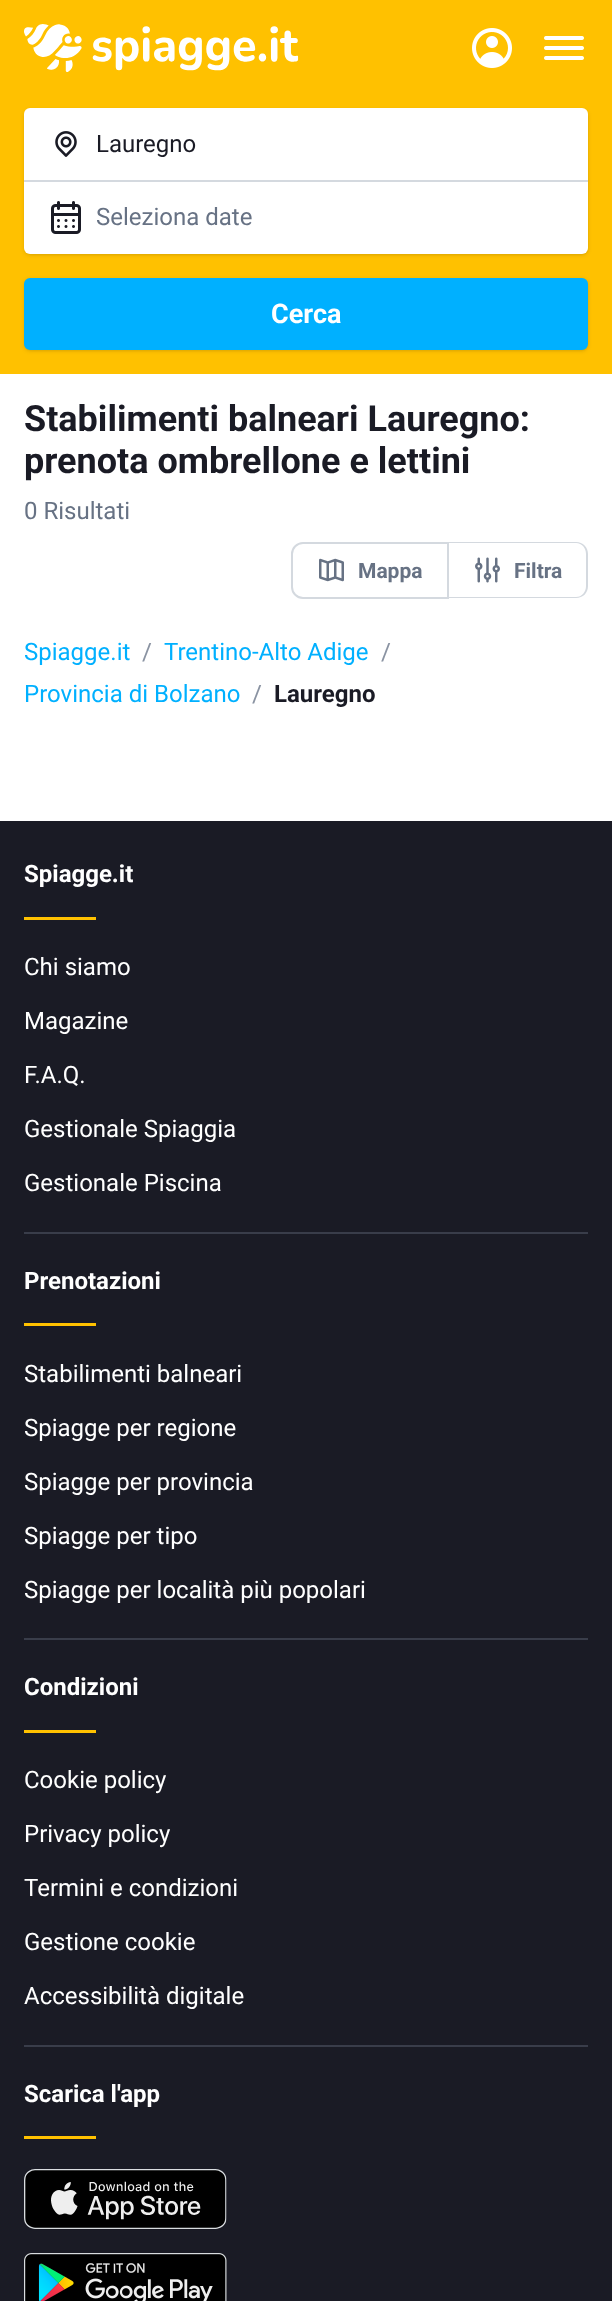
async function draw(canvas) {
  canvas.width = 612
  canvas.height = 2301
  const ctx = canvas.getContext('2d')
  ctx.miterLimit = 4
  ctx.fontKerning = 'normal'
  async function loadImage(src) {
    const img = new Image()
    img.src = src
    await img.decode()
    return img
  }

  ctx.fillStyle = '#fff'
  ctx.fillRect(0, 0, 612, 2301)
  ctx.fillStyle = '#ffc100'
  ctx.fillRect(0, 0, 612, 374)
  ctx.drawImage(await loadImage('image0.png'), 24, 24, 275, 48)
  ctx.drawImage(await loadImage('image1.png'), 472, 28, 40, 40)
  ctx.drawImage(await loadImage('image2.png'), 544, 36, 40, 24)
  ctx.fillStyle = '#0000001a'
  ctx.filter = 'blur(1.5px)'
  ctx.beginPath()
  ctx.roundRect(26, 111, 561, 143, 5)
  ctx.fill()
  ctx.filter = 'none'
  ctx.filter = 'blur(2px)'
  ctx.beginPath()
  ctx.roundRect(24, 110, 564, 145, 6)
  ctx.fill()
  ctx.filter = 'none'
  ctx.fillStyle = '#fff'
  ctx.beginPath()
  ctx.roundRect(24, 108, 564, 146, 6)
  ctx.fill()
  ctx.fillStyle = '#d4d9df'
  ctx.fillRect(24, 180, 564, 2)
  ctx.drawImage(await loadImage('image3.png'), 55, 131, 22, 26)
  ctx.font = '24px Roboto'
  ctx.fillStyle = '#1a1b25'
  ctx.fillText('Lauregno', 96, 152)
  ctx.drawImage(await loadImage('image4.png'), 51, 201, 30, 33)
  ctx.fillStyle = '#677284'
  ctx.fillText('Seleziona date', 96, 225)
  ctx.fillStyle = '#0000001a'
  ctx.filter = 'blur(1.5px)'
  ctx.beginPath()
  ctx.roundRect(26, 281, 561, 69, 5)
  ctx.fill()
  ctx.filter = 'none'
  ctx.filter = 'blur(2px)'
  ctx.beginPath()
  ctx.roundRect(24, 279, 564, 72, 6)
  ctx.fill()
  ctx.filter = 'none'
  ctx.fillStyle = '#00b0ff'
  ctx.beginPath()
  ctx.roundRect(25, 279, 562, 70, 5)
  ctx.fill()
  ctx.strokeStyle = '#00b0ff'
  ctx.lineWidth = 2
  ctx.stroke()
  ctx.font = 'bold 27px Roboto'
  ctx.fillStyle = '#fff'
  ctx.fillText('Cerca', 271, 323)
  ctx.font = 'bold 36px Roboto'
  ctx.fillStyle = '#1a1b25'
  ctx.fillText('Stabilimenti balneari Lauregno:', 24, 431)
  ctx.fillText('prenota ombrellone e lettini', 24, 473)
  ctx.font = '24px Roboto'
  ctx.fillStyle = '#677284'
  ctx.fillText('0 Risultati', 24, 519)
  ctx.beginPath()
  ctx.roundRect(292, 543, 156, 55, [11, 0, 0, 11])
  ctx.strokeStyle = '#d4d9df'
  ctx.stroke()
  ctx.drawImage(await loadImage('image5.png'), 319, 558, 25, 24)
  ctx.font = 'bold 21px Roboto'
  ctx.fillText('Mappa', 358, 578)
  ctx.fillStyle = '#d4d9df'
  ctx.beginPath()
  ctx.moveTo(448, 542)
  ctx.lineTo(576, 542)
  ctx.bezierCurveTo(583, 542, 588, 547, 588, 554)
  ctx.lineTo(588, 586)
  ctx.bezierCurveTo(588, 593, 583, 598, 576, 598)
  ctx.lineTo(448, 598)
  ctx.closePath()
  ctx.moveTo(448, 543)
  ctx.lineTo(576, 543)
  ctx.bezierCurveTo(582, 543, 586, 548, 586, 554)
  ctx.lineTo(586, 586)
  ctx.bezierCurveTo(586, 592, 582, 597, 576, 597)
  ctx.lineTo(448, 597)
  ctx.closePath()
  ctx.fill('evenodd')
  ctx.drawImage(await loadImage('image6.png'), 475, 557, 25, 26)
  ctx.fillStyle = '#677284'
  ctx.fillText('Filtra', 514, 578)
  ctx.font = '24px Roboto'
  ctx.fillStyle = '#00b0ff'
  ctx.fillText('Spiagge.it', 24, 660)
  ctx.fillStyle = '#8a93a2'
  ctx.fillText('/', 142, 660)
  ctx.fillStyle = '#00b0ff'
  ctx.fillText('Trentino-Alto Adige', 164, 660)
  ctx.fillStyle = '#8a93a2'
  ctx.fillText('/', 381, 660)
  ctx.fillStyle = '#00b0ff'
  ctx.fillText('Provincia di Bolzano', 24, 702)
  ctx.fillStyle = '#8a93a2'
  ctx.fillText('/', 252, 702)
  ctx.font = 'bold 24px Roboto'
  ctx.fillStyle = '#1a1b25'
  ctx.fillText('Lauregno', 274, 702)
  ctx.fillRect(0, 821, 612, 1480)
  ctx.fillStyle = '#393d4a'
  ctx.fillRect(24, 1232, 564, 2)
  ctx.fillStyle = '#fff'
  ctx.fillText('Spiagge.it', 24, 882)
  ctx.fillStyle = '#ffc100'
  ctx.fillRect(24, 917, 72, 3)
  ctx.font = '24px Roboto'
  ctx.fillStyle = '#fff'
  ctx.fillText('Chi siamo', 24, 975)
  ctx.fillText('Magazine', 24, 1029)
  ctx.fillText('F.A.Q.', 24, 1083)
  ctx.fillText('Gestionale Spiaggia', 24, 1137)
  ctx.fillText('Gestionale Piscina', 24, 1191)
  ctx.fillStyle = '#393d4a'
  ctx.fillRect(24, 1638, 564, 2)
  ctx.font = 'bold 24px Roboto'
  ctx.fillStyle = '#fff'
  ctx.fillText('Prenotazioni', 24, 1289)
  ctx.fillStyle = '#ffc100'
  ctx.fillRect(24, 1323, 72, 3)
  ctx.font = '24px Roboto'
  ctx.fillStyle = '#fff'
  ctx.fillText('Stabilimenti balneari', 24, 1382)
  ctx.fillText('Spiagge per regione', 24, 1436)
  ctx.fillText('Spiagge per provincia', 24, 1490)
  ctx.fillText('Spiagge per tipo', 24, 1544)
  ctx.fillText('Spiagge per località più popolari', 24, 1598)
  ctx.fillStyle = '#393d4a'
  ctx.fillRect(24, 2045, 564, 2)
  ctx.font = 'bold 24px Roboto'
  ctx.fillStyle = '#fff'
  ctx.fillText('Condizioni', 24, 1695)
  ctx.fillStyle = '#ffc100'
  ctx.fillRect(24, 1730, 72, 3)
  ctx.font = '24px Roboto'
  ctx.fillStyle = '#fff'
  ctx.fillText('Cookie policy', 24, 1788)
  ctx.fillText('Privacy policy', 24, 1842)
  ctx.fillText('Termini e condizioni', 24, 1896)
  ctx.fillText('Gestione cookie', 24, 1950)
  ctx.fillText('Accessibilità digitale', 24, 2004)
  ctx.font = 'bold 24px Roboto'
  ctx.fillText('Scarica l\'app', 24, 2102)
  ctx.fillStyle = '#ffc100'
  ctx.fillRect(24, 2136, 72, 3)
  ctx.drawImage(await loadImage('image7.png'), 24, 2169, 203, 60)
  ctx.drawImage(await loadImage('image8.png'), 24, 2253, 203, 48)
}

draw(document.querySelector('canvas'))
